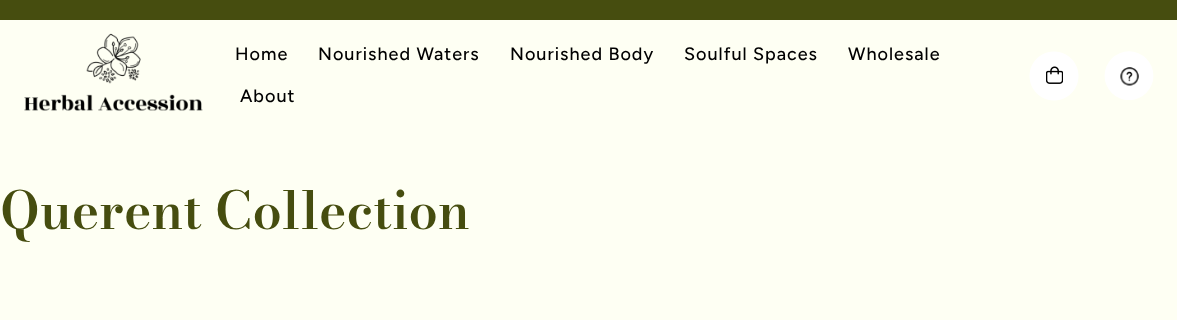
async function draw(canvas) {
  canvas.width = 1177
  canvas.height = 320
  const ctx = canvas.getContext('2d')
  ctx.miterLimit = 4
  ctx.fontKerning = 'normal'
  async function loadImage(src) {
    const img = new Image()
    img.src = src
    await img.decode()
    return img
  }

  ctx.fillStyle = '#464d0f'
  ctx.fillRect(0, 0, 1177, 320)
  ctx.fillStyle = '#fefff3'
  ctx.fillRect(0, 20, 1177, 300)
  ctx.drawImage(await loadImage('image0.png'), 24, 33, 179, 78)
  ctx.letterSpacing = '1px'
  ctx.font = '500 18px Figtree'
  ctx.fillStyle = '#000'
  ctx.fillText('Home', 235, 60)
  ctx.fillText('Nourished Waters', 318, 60)
  ctx.fillText('Nourished Body', 510, 60)
  ctx.fillText('Soulful Spaces', 684, 60)
  ctx.fillText('Wholesale', 848, 60)
  ctx.fillText('About', 240, 102)
  ctx.drawImage(await loadImage('image1.png'), 1029, 51, 50, 50)
  ctx.drawImage(await loadImage('image2.png'), 1104, 51, 50, 49)
  ctx.letterSpacing = '0px'
  ctx.font = '600 52px Bodoni Moda'
  ctx.fillStyle = '#464d0f'
  ctx.fillText('Querent Collection', 0, 229)
}

draw(document.querySelector('canvas'))
